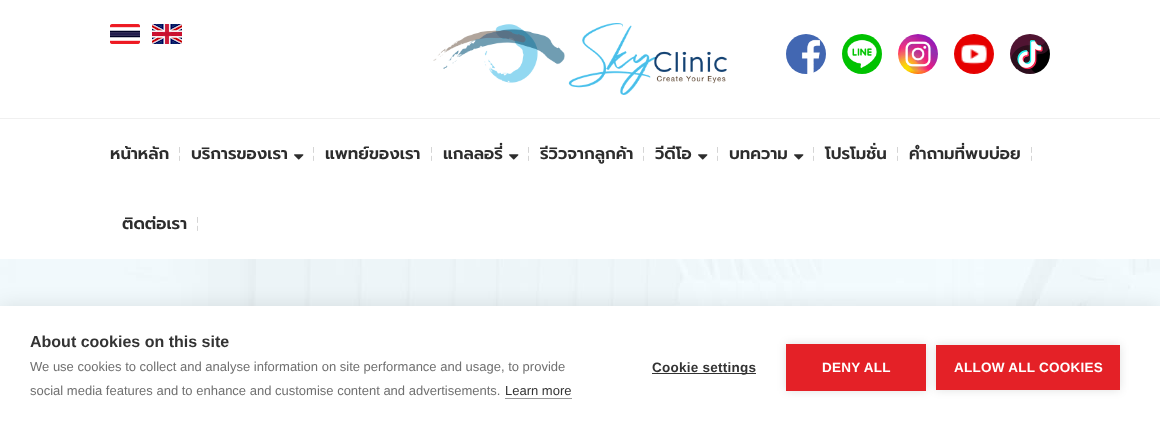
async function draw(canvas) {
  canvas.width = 1160
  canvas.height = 428
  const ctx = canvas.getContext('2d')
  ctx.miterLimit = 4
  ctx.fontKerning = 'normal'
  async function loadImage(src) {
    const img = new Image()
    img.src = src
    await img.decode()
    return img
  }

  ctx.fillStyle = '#fff'
  ctx.fillRect(0, 0, 1160, 428)
  ctx.drawImage(await loadImage('image0.png'), 110, 24, 30, 20)
  ctx.drawImage(await loadImage('image1.png'), 152, 24, 30, 20)
  ctx.drawImage(await loadImage('image2.png'), 433, 23, 294, 72)
  ctx.drawImage(await loadImage('image3.png'), 786, 34, 40, 40)
  ctx.drawImage(await loadImage('image4.png'), 842, 34, 40, 40)
  ctx.drawImage(await loadImage('image5.png'), 898, 34, 40, 40)
  ctx.drawImage(await loadImage('image6.png'), 954, 34, 40, 40)
  ctx.drawImage(await loadImage('image7.png'), 1010, 34, 40, 40)
  ctx.fillStyle = '#f0f0f0'
  ctx.fillRect(0, 118, 1160, 1)
  ctx.font = '600 16.5px Prompt'
  ctx.fillStyle = '#2d2d2d'
  ctx.fillText('หน้าหลัก', 110, 159)
  ctx.drawImage(await loadImage('image8.png'), 179, 147, 1, 14)
  ctx.fillText('บริการของเรา', 191, 159)
  ctx.drawImage(await loadImage('image9.png'), 294, 154, 10, 6)
  ctx.drawImage(await loadImage('image8.png'), 313, 147, 1, 14)
  ctx.fillText('แพทย์ของเรา', 325, 159)
  ctx.drawImage(await loadImage('image8.png'), 431, 147, 1, 14)
  ctx.fillText('แกลลอรี่', 443, 159)
  ctx.drawImage(await loadImage('image9.png'), 509, 154, 10, 6)
  ctx.drawImage(await loadImage('image8.png'), 528, 147, 1, 14)
  ctx.fillText('รีวิวจากลูกค้า', 540, 159)
  ctx.drawImage(await loadImage('image8.png'), 643, 147, 1, 14)
  ctx.fillText('วีดีโอ', 655, 159)
  ctx.drawImage(await loadImage('image9.png'), 698, 154, 10, 6)
  ctx.drawImage(await loadImage('image8.png'), 717, 147, 1, 14)
  ctx.fillText('บทความ', 729, 159)
  ctx.drawImage(await loadImage('image9.png'), 794, 154, 10, 6)
  ctx.drawImage(await loadImage('image8.png'), 813, 147, 1, 14)
  ctx.fillText('โปรโมชั่น', 825, 159)
  ctx.drawImage(await loadImage('image8.png'), 897, 147, 1, 14)
  ctx.fillText('คำถามที่พบบ่อย', 909, 159)
  ctx.drawImage(await loadImage('image8.png'), 1031, 147, 1, 14)
  ctx.fillText('ติดต่อเรา', 122, 229)
  ctx.drawImage(await loadImage('image8.png'), 197, 217, 1, 14)
  ctx.drawImage(await loadImage('image10.png'), 0, 259, 1160, 47)
  ctx.fillStyle = '#0000001a'
  ctx.filter = 'blur(10px)'
  ctx.beginPath()
  ctx.rect(0, 306, 1160, 122)
  ctx.fill()
  ctx.filter = 'none'
  ctx.fillStyle = '#fff'
  ctx.fillRect(0, 306, 1160, 122)
  ctx.font = 'bold 16px Liberation Sans'
  ctx.fillStyle = '#333'
  ctx.fillText('About cookies on this site', 30, 347)
  ctx.font = '13px Liberation Sans'
  ctx.fillStyle = '#707070'
  ctx.fillText('We use cookies to collect and analyse information on site performance and usage, to provide', 30, 371)
  ctx.fillText('social media features and to enhance and customise content and advertisements.', 30, 395)
  ctx.fillStyle = '#333'
  ctx.fillText('Learn more', 505, 395)
  ctx.fillStyle = '#999'
  ctx.fillRect(505, 398, 67, 1)
  ctx.fillStyle = '#333'
  ctx.fillRect(652, 373, 104, 1)
  ctx.letterSpacing = '0.25px'
  ctx.font = 'bold 13.5px Liberation Sans'
  ctx.fillText('Cookie settings', 652, 372)
  ctx.fillStyle = '#0000001f'
  ctx.filter = 'blur(5px)'
  ctx.beginPath()
  ctx.rect(786, 344, 140, 47)
  ctx.fill()
  ctx.filter = 'none'
  ctx.fillStyle = '#e42127'
  ctx.fillRect(786, 344, 140, 47)
  ctx.fillStyle = '#fff'
  ctx.fillText('DENY ALL', 822, 372)
  ctx.fillStyle = '#0000001f'
  ctx.filter = 'blur(5px)'
  ctx.beginPath()
  ctx.rect(936, 345, 184, 45)
  ctx.fill()
  ctx.filter = 'none'
  ctx.fillStyle = '#e42127'
  ctx.fillRect(936, 345, 184, 45)
  ctx.fillStyle = '#fff'
  ctx.fillText('ALLOW ALL COOKIES', 954, 372)
}

draw(document.querySelector('canvas'))
